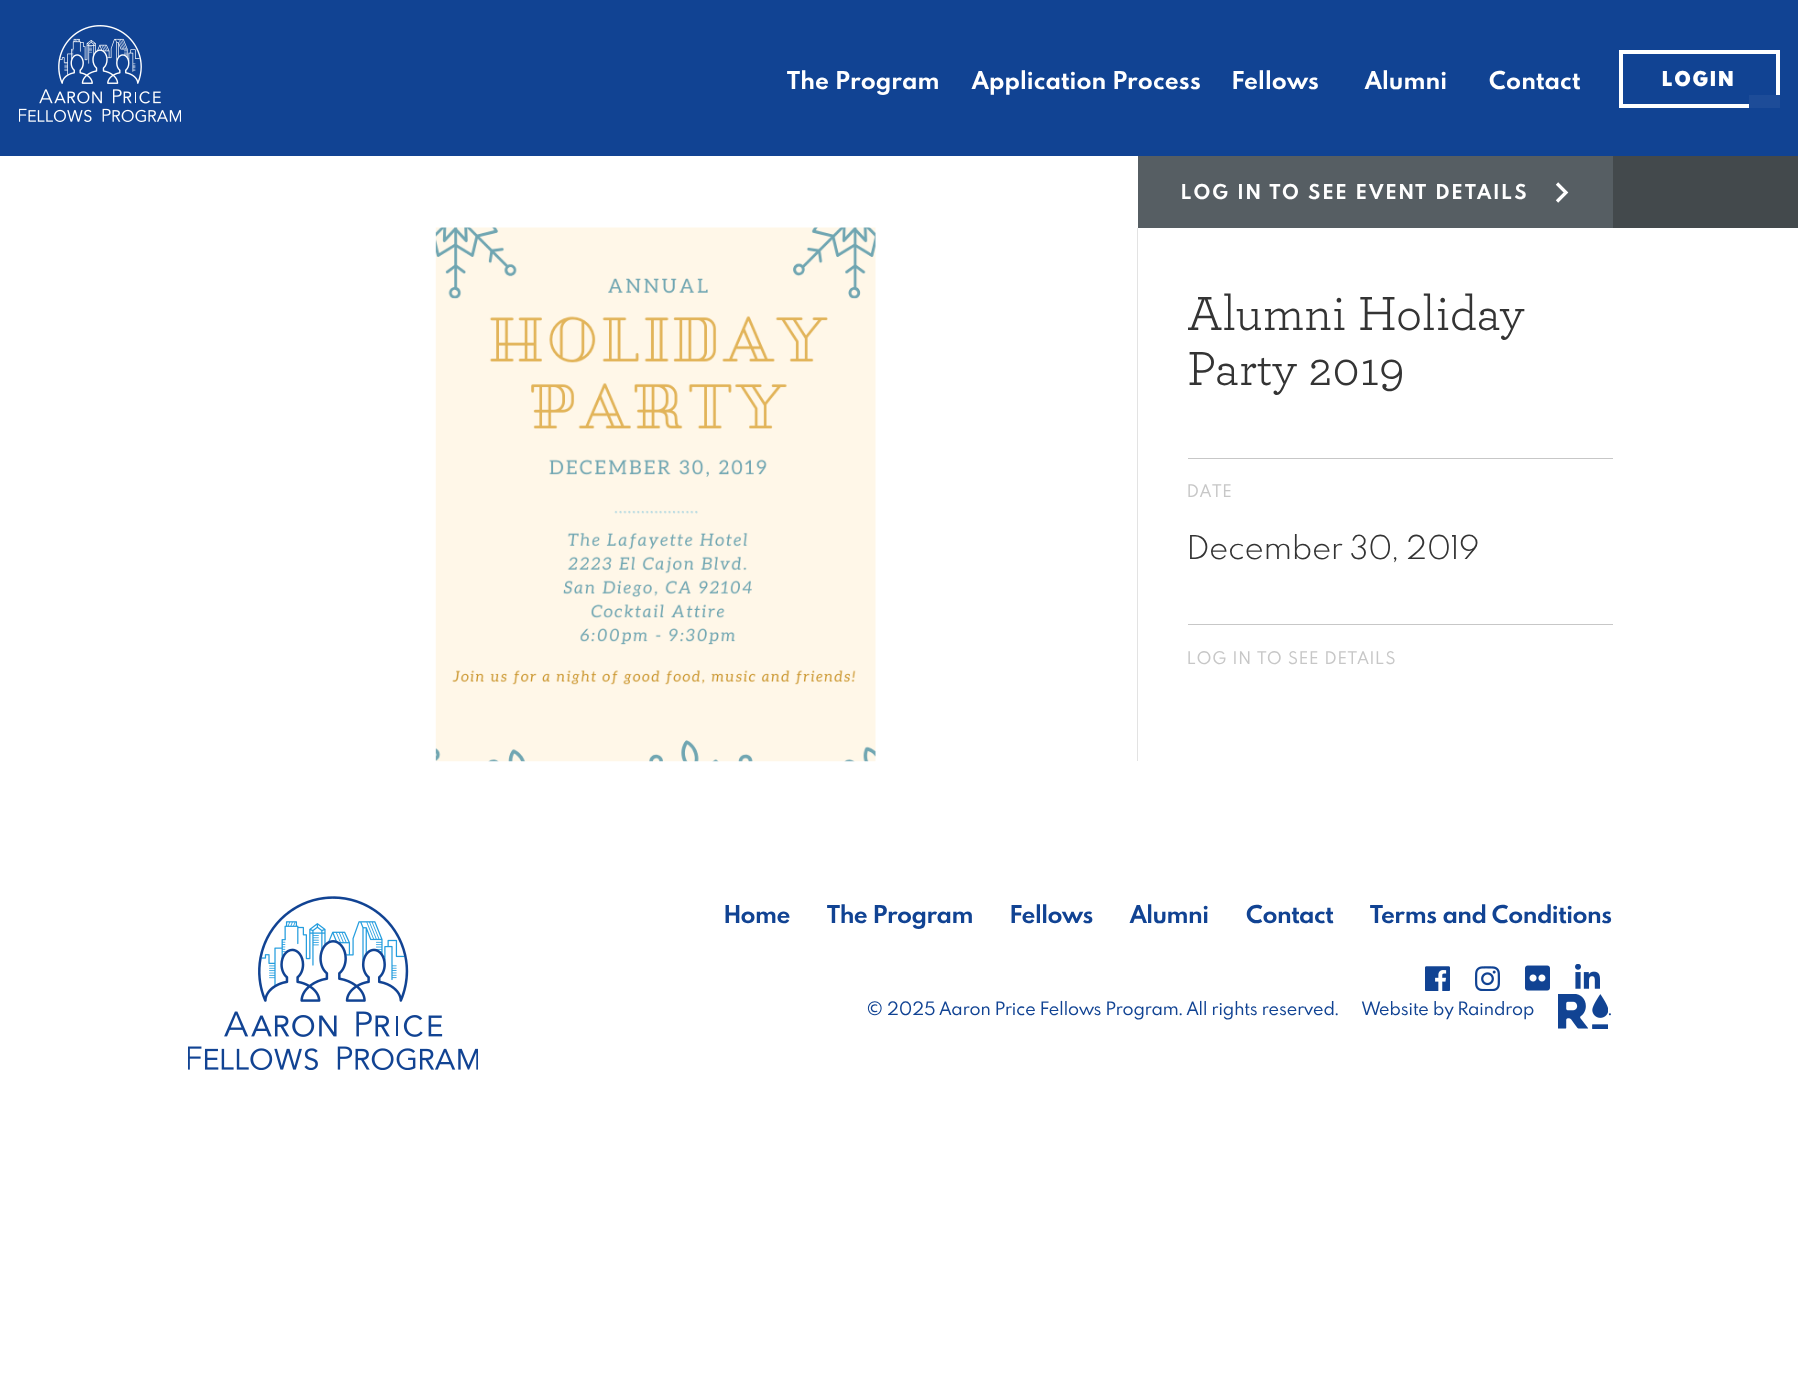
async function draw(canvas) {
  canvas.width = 1798
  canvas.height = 1380
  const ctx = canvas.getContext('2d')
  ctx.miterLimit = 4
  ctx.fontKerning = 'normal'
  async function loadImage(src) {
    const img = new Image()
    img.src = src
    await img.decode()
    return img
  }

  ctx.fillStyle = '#fff'
  ctx.fillRect(0, 0, 1798, 1380)
  ctx.fillStyle = '#114393'
  ctx.fillRect(0, 0, 1798, 156)
  ctx.drawImage(await loadImage('image0.png'), 19, 25, 162, 97)
  ctx.letterSpacing = '0.6px'
  ctx.font = 'bold 24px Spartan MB'
  ctx.fillStyle = '#fff'
  ctx.fillText('The Program', 787, 89)
  ctx.fillText('Application Process', 972, 89)
  ctx.fillText('Fellows', 1232, 89)
  ctx.fillText('Alumni', 1365, 89)
  ctx.fillText('Contact', 1489, 89)
  ctx.strokeStyle = '#fff'
  ctx.lineWidth = 4
  ctx.strokeRect(1621, 52, 157, 54)
  ctx.letterSpacing = '2.5px'
  ctx.font = '900 20px Spartan MB'
  ctx.fillText('LOGIN', 1662, 86)
  ctx.fillStyle = '#1d4c98'
  ctx.fillRect(1749, 95, 31, 13)
  ctx.fillStyle = '#565e63'
  ctx.fillRect(1138, 156, 475, 72)
  ctx.font = 'bold 20px Spartan MB'
  ctx.fillStyle = '#fff'
  ctx.fillText('LOG IN TO SEE EVENT DETAILS', 1181, 199)
  ctx.beginPath()
  ctx.moveTo(1557, 183.5)
  ctx.lineTo(1566, 192.5)
  ctx.lineTo(1557, 201.5)
  ctx.lineWidth = 3.3
  ctx.stroke()
  ctx.fillStyle = '#43494c'
  ctx.fillRect(1613, 156, 185, 72)
  ctx.fillStyle = '#c7c7c7'
  ctx.fillRect(1137, 228, 1, 533)
  ctx.drawImage(await loadImage('image1.png'), 188, 227, 950, 535)
  ctx.letterSpacing = '0px'
  ctx.font = '50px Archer'
  ctx.fillStyle = '#343434'
  ctx.fillText('Alumni Holiday', 1187, 330)
  ctx.fillText('Party 2019', 1187, 385)
  ctx.fillStyle = '#c7c7c7'
  ctx.fillRect(1188, 458, 425, 1)
  ctx.letterSpacing = '1.25px'
  ctx.font = '17px Spartan MB'
  ctx.fillText('DATE', 1187, 497)
  ctx.letterSpacing = '0px'
  ctx.font = '300 32px Spartan MB'
  ctx.fillStyle = '#343434'
  ctx.fillText('December 30, 2019', 1187, 559)
  ctx.fillStyle = '#c7c7c7'
  ctx.fillRect(1188, 624, 425, 1)
  ctx.letterSpacing = '1.25px'
  ctx.font = '17px Spartan MB'
  ctx.fillText('LOG IN TO SEE DETAILS', 1187, 664)
  ctx.drawImage(await loadImage('image2.png'), 188, 896, 290, 174)
  ctx.letterSpacing = '0px'
  ctx.font = 'bold 24px Spartan MB'
  ctx.fillStyle = '#114393'
  ctx.fillText('Home', 724, 923)
  ctx.fillText('The Program', 827, 923)
  ctx.fillText('Fellows', 1010, 923)
  ctx.fillText('Alumni', 1130, 923)
  ctx.fillText('Contact', 1246, 923)
  ctx.fillText('Terms and Conditions', 1370, 923)
  ctx.drawImage(await loadImage('image3.png'), 1425, 966, 25, 25)
  ctx.drawImage(await loadImage('image4.png'), 1475, 966, 25, 25)
  ctx.drawImage(await loadImage('image5.png'), 1525, 965, 25, 26)
  ctx.drawImage(await loadImage('image6.png'), 1575, 964, 25, 25)
  ctx.font = '18px Spartan MB'
  ctx.fillText('© 2025 Aaron Price Fellows Program. All rights reserved.', 867, 1015)
  ctx.fillText('Website by Raindrop', 1362, 1015)
  ctx.drawImage(await loadImage('image7.png'), 1558, 994, 50, 35)
  ctx.fillText('.', 1608, 1015)
}

draw(document.querySelector('canvas'))
